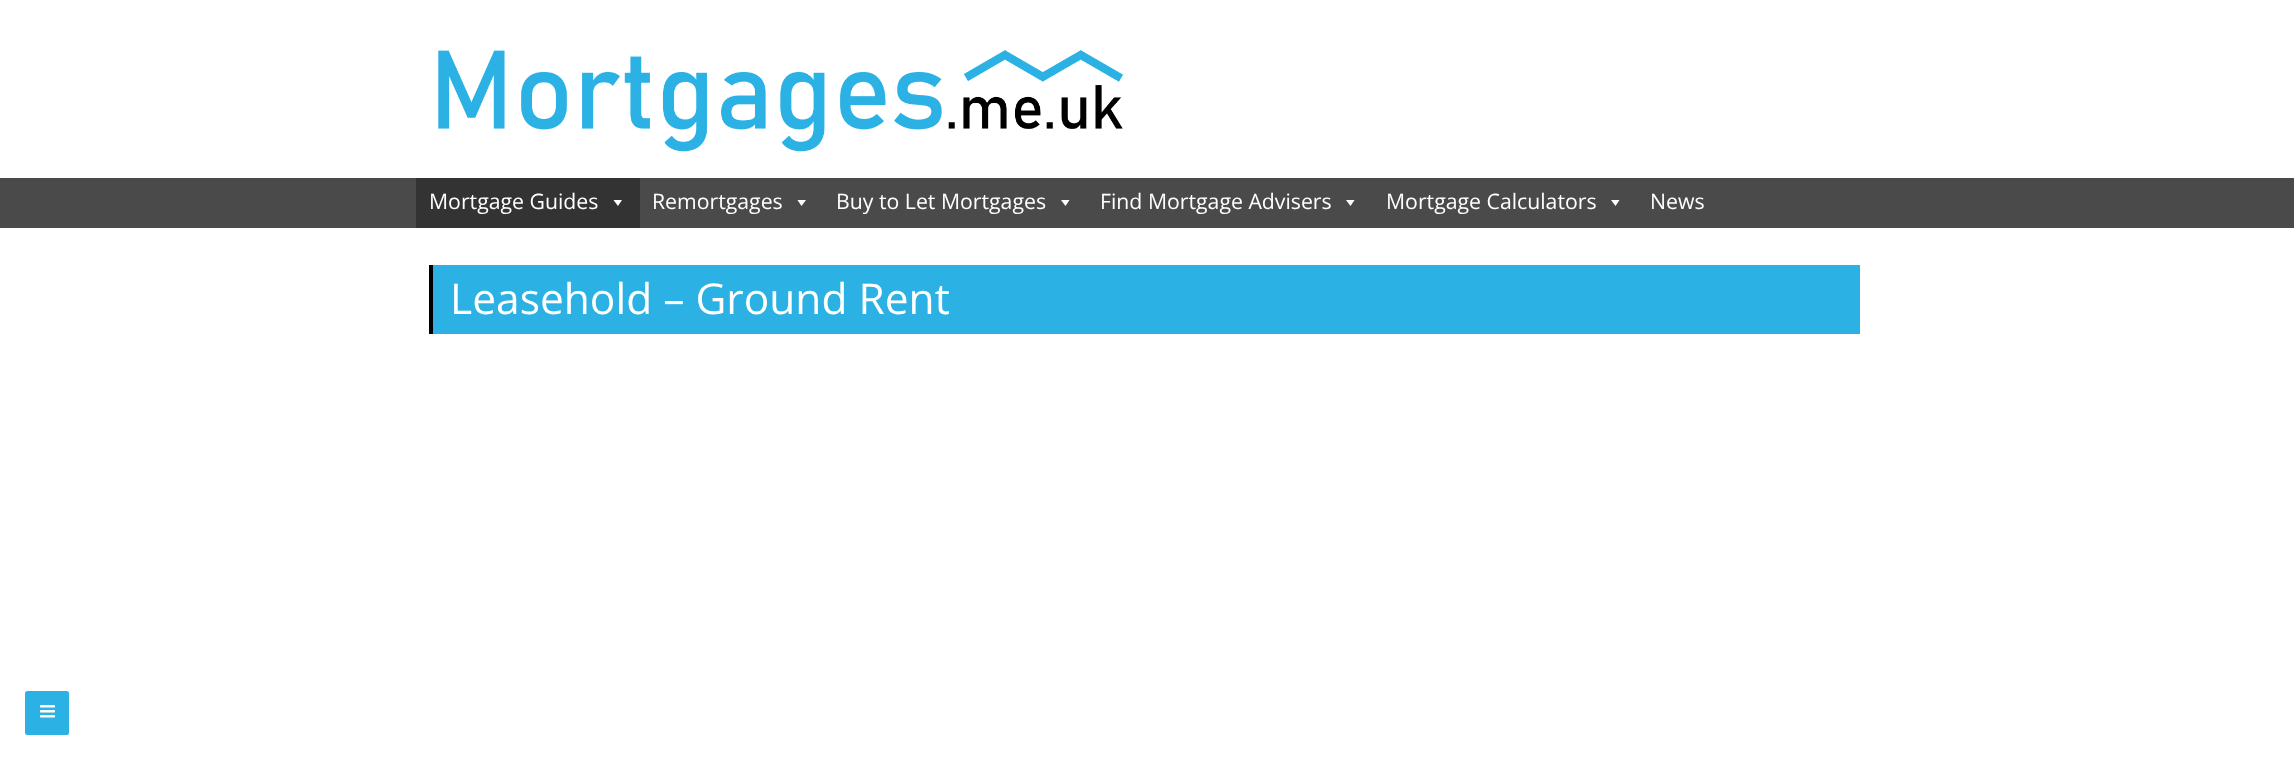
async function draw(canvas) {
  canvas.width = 2294
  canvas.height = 759
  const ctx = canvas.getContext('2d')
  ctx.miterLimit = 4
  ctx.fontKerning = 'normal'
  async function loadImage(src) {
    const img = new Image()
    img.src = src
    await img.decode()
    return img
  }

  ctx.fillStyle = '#fff'
  ctx.fillRect(0, 0, 2294, 759)
  ctx.drawImage(await loadImage('image0.png'), 438, 50, 686, 102)
  ctx.fillStyle = '#4a4a4a'
  ctx.fillRect(0, 178, 2294, 50)
  ctx.fillStyle = '#333'
  ctx.fillRect(416, 178, 224, 50)
  ctx.font = '21.25px Open Sans'
  ctx.fillStyle = '#fff'
  ctx.fillText('Mortgage Guides', 429, 209)
  ctx.beginPath()
  ctx.moveTo(622, 200)
  ctx.lineTo(618, 206)
  ctx.lineTo(613.5, 200)
  ctx.closePath()
  ctx.fill()
  ctx.fillText('Remortgages', 652, 209)
  ctx.beginPath()
  ctx.moveTo(806, 200)
  ctx.lineTo(801.5, 206)
  ctx.lineTo(797.5, 200)
  ctx.closePath()
  ctx.fill()
  ctx.fillText('Buy to Let Mortgages', 836, 209)
  ctx.beginPath()
  ctx.moveTo(1069.5, 200)
  ctx.lineTo(1065.5, 206)
  ctx.lineTo(1061, 200)
  ctx.closePath()
  ctx.fill()
  ctx.fillText('Find Mortgage Advisers', 1100, 209)
  ctx.beginPath()
  ctx.moveTo(1354.5, 200)
  ctx.lineTo(1350.5, 206)
  ctx.lineTo(1346, 200)
  ctx.closePath()
  ctx.fill()
  ctx.fillText('Mortgage Calculators', 1386, 209)
  ctx.beginPath()
  ctx.moveTo(1619.5, 200)
  ctx.lineTo(1615.5, 206)
  ctx.lineTo(1611, 200)
  ctx.closePath()
  ctx.fill()
  ctx.fillText('News', 1650, 209)
  ctx.fillStyle = '#2bb1e4'
  ctx.fillRect(433, 265, 1427, 69)
  ctx.fillStyle = '#000'
  ctx.fillRect(429, 265, 4, 69)
  ctx.font = '42.5px Open Sans'
  ctx.fillStyle = '#fff'
  ctx.fillText('Leasehold – Ground Rent', 450, 314)
  ctx.fillStyle = '#2bb1e4'
  ctx.beginPath()
  ctx.roundRect(25, 691, 44, 44, 2.5)
  ctx.fill()
  ctx.drawImage(await loadImage('image1.png'), 40, 705, 15, 13)
}

draw(document.querySelector('canvas'))
